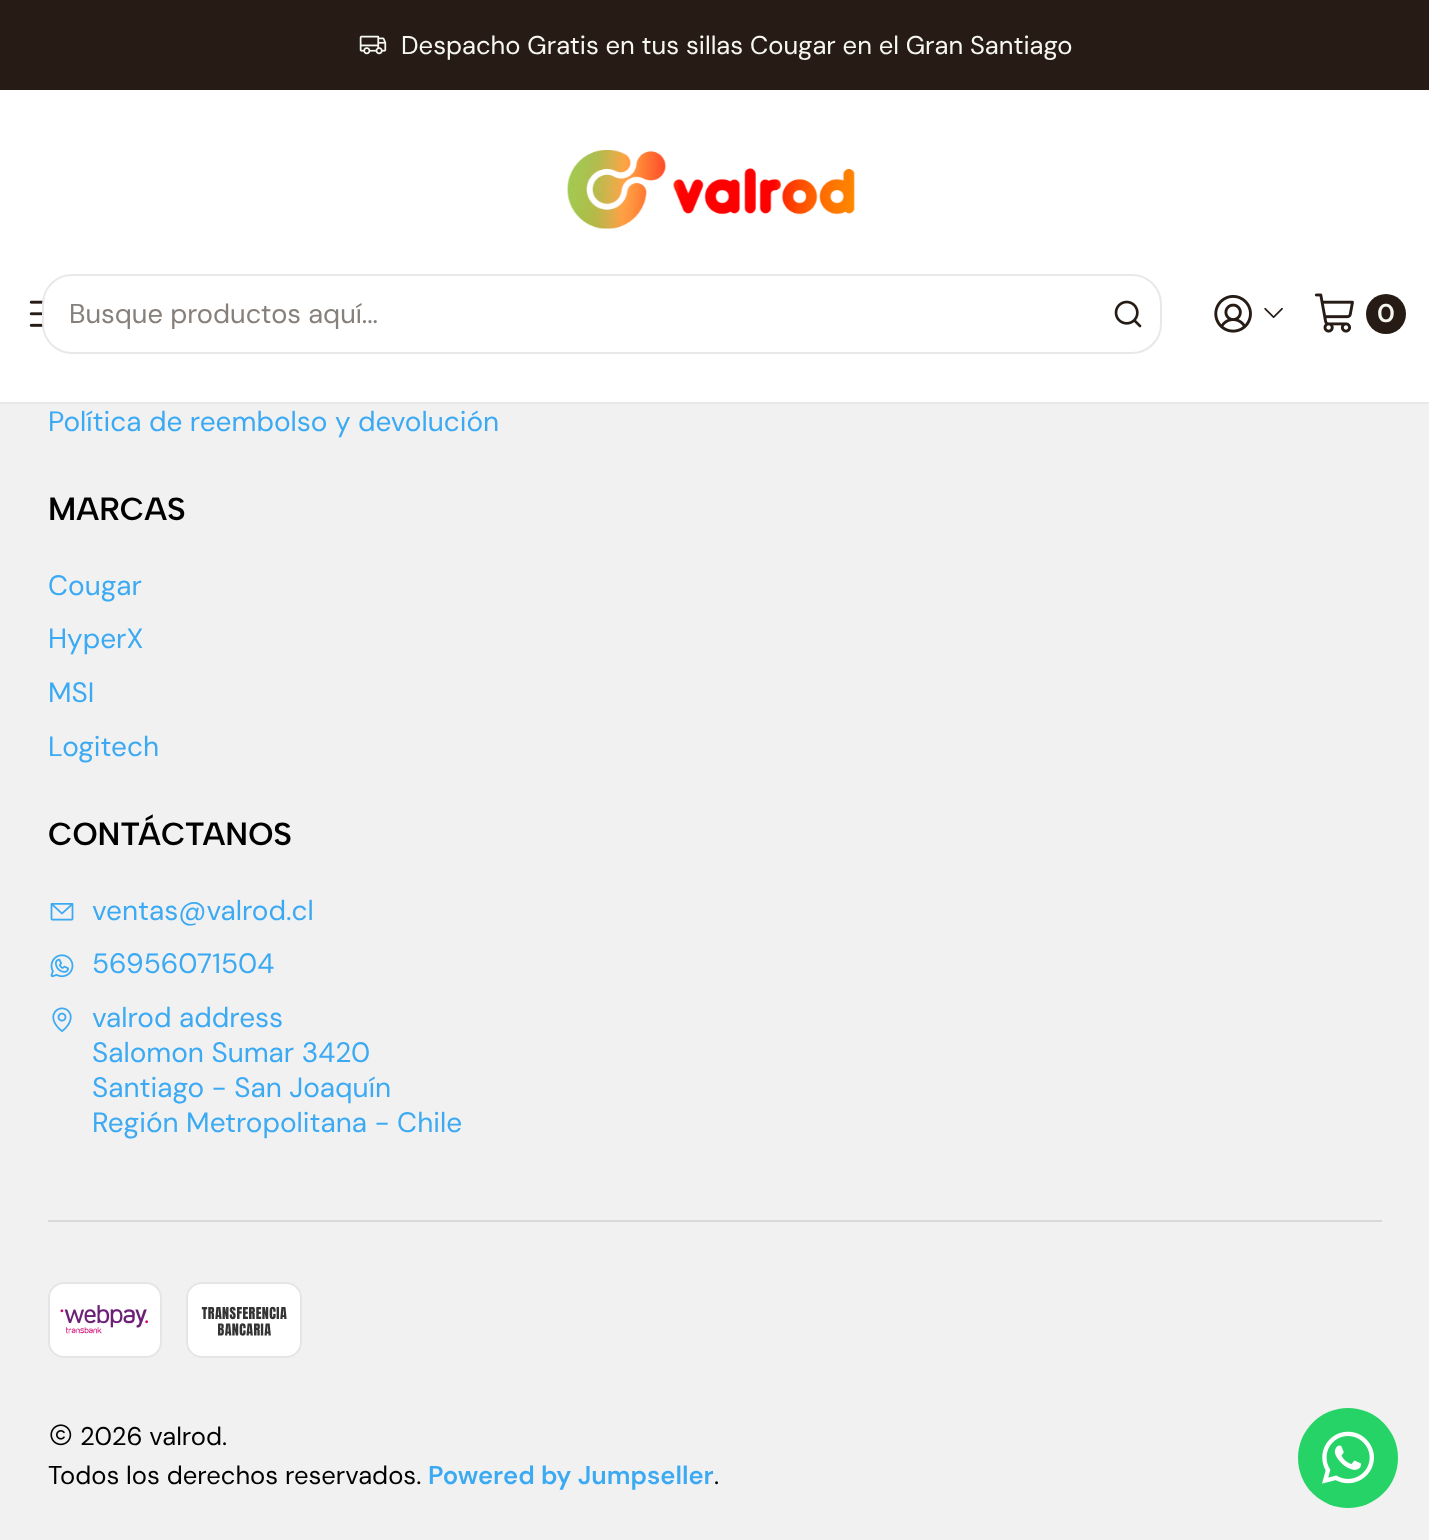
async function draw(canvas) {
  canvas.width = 1429
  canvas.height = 1540
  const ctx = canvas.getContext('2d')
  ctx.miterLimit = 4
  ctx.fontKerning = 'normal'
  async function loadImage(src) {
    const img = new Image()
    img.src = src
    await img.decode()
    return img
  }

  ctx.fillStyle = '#f1f1f1'
  ctx.fillRect(0, 0, 1429, 1540)
  ctx.fillStyle = '#261c15'
  ctx.fillRect(0, 0, 1429, 90)
  ctx.drawImage(await loadImage('image0.png'), 359, 35, 28, 20)
  ctx.font = '25.6px DM Sans'
  ctx.fillStyle = '#f7f7f2'
  ctx.fillText('Despacho Gratis en tus sillas Cougar en el Gran Santiago', 401, 54)
  ctx.fillStyle = '#fff'
  ctx.fillRect(0, 90, 1429, 312)
  ctx.fillStyle = '#e9e8e8'
  ctx.fillRect(0, 402, 1429, 2)
  ctx.drawImage(await loadImage('image1.png'), 567, 150, 288, 79)
  ctx.drawImage(await loadImage('image2.png'), 29, 300, 14, 27)
  ctx.fillStyle = '#fff'
  ctx.beginPath()
  ctx.roundRect(42, 274, 1120, 80, 30)
  ctx.fill()
  ctx.beginPath()
  ctx.roundRect(43, 275, 1118, 78, 29)
  ctx.strokeStyle = '#261c151a'
  ctx.lineWidth = 2
  ctx.stroke()
  ctx.font = '27.25px DM Sans'
  ctx.fillStyle = '#85807c'
  ctx.fillText('Busque productos aquí...', 69, 323)
  ctx.drawImage(await loadImage('image3.png'), 1114, 300, 28, 28)
  ctx.drawImage(await loadImage('image4.png'), 1214, 295, 38, 38)
  ctx.drawImage(await loadImage('image5.png'), 1264, 307, 19, 11)
  ctx.drawImage(await loadImage('image6.png'), 1314, 293, 40, 40)
  ctx.fillStyle = '#261c15'
  ctx.beginPath()
  ctx.arc(1386, 314, 20, 0, 2 * Math.PI)
  ctx.fill()
  ctx.font = '600 25.6px DM Sans'
  ctx.fillStyle = '#f7f7f2'
  ctx.fillText('0', 1377, 322)
  ctx.font = '28px DM Sans'
  ctx.fillStyle = '#3caaf3'
  ctx.fillText('Política de reembolso y devolución', 48, 431)
  ctx.font = '600 32px Albert Sans'
  ctx.fillStyle = '#000'
  ctx.fillText('MARCAS', 48, 520)
  ctx.font = '28px DM Sans'
  ctx.fillStyle = '#3caaf3'
  ctx.fillText('Cougar', 48, 595)
  ctx.fillText('HyperX', 48, 648)
  ctx.fillText('MSI', 48, 702)
  ctx.fillText('Logitech', 48, 756)
  ctx.font = '600 32px Albert Sans'
  ctx.fillStyle = '#000'
  ctx.fillText('CONTÁCTANOS', 48, 845)
  ctx.drawImage(await loadImage('image7.png'), 50, 903, 24, 18)
  ctx.font = '28px DM Sans'
  ctx.fillStyle = '#3caaf3'
  ctx.fillText('ventas@valrod.cl', 92, 920)
  ctx.drawImage(await loadImage('image8.png'), 50, 954, 24, 24)
  ctx.fillText('56956071504', 92, 973)
  ctx.drawImage(await loadImage('image9.png'), 52, 1007, 20, 25)
  ctx.fillText('valrod address', 92, 1027)
  ctx.fillText('Salomon Sumar 3420', 92, 1062)
  ctx.fillText('Santiago - San Joaquín', 92, 1097)
  ctx.fillText('Región Metropolitana - Chile', 92, 1132)
  ctx.fillStyle = '#d9d9d9'
  ctx.fillRect(48, 1220, 1334, 2)
  ctx.fillStyle = '#fff'
  ctx.beginPath()
  ctx.roundRect(48, 1282, 114, 76, 16)
  ctx.fill()
  ctx.beginPath()
  ctx.roundRect(49, 1283, 112, 74, 15)
  ctx.strokeStyle = '#0000001a'
  ctx.stroke()
  ctx.drawImage(await loadImage('image10.png'), 60, 1305, 88, 29)
  ctx.beginPath()
  ctx.roundRect(186, 1282, 116, 76, 16)
  ctx.fill()
  ctx.beginPath()
  ctx.roundRect(187, 1283, 114, 74, 15)
  ctx.stroke()
  ctx.drawImage(await loadImage('image11.png'), 201, 1306, 86, 30)
  ctx.drawImage(await loadImage('image12.png'), 50, 1424, 22, 22)
  ctx.font = '25.6px DM Sans'
  ctx.fillStyle = '#000'
  ctx.fillText('2026 valrod.', 80, 1445)
  ctx.fillText('Todos los derechos reservados.', 48, 1484)
  ctx.font = '600 25.6px DM Sans'
  ctx.fillStyle = '#3caaf3'
  ctx.fillText('Powered by Jumpseller', 428, 1484)
  ctx.font = '25.6px DM Sans'
  ctx.fillStyle = '#000'
  ctx.fillText('.', 714, 1484)
  ctx.fillStyle = '#25d366'
  ctx.beginPath()
  ctx.arc(1348, 1458, 50, 0, 2 * Math.PI)
  ctx.fill()
  ctx.drawImage(await loadImage('image13.png'), 1322, 1431, 52, 53)
}

draw(document.querySelector('canvas'))
